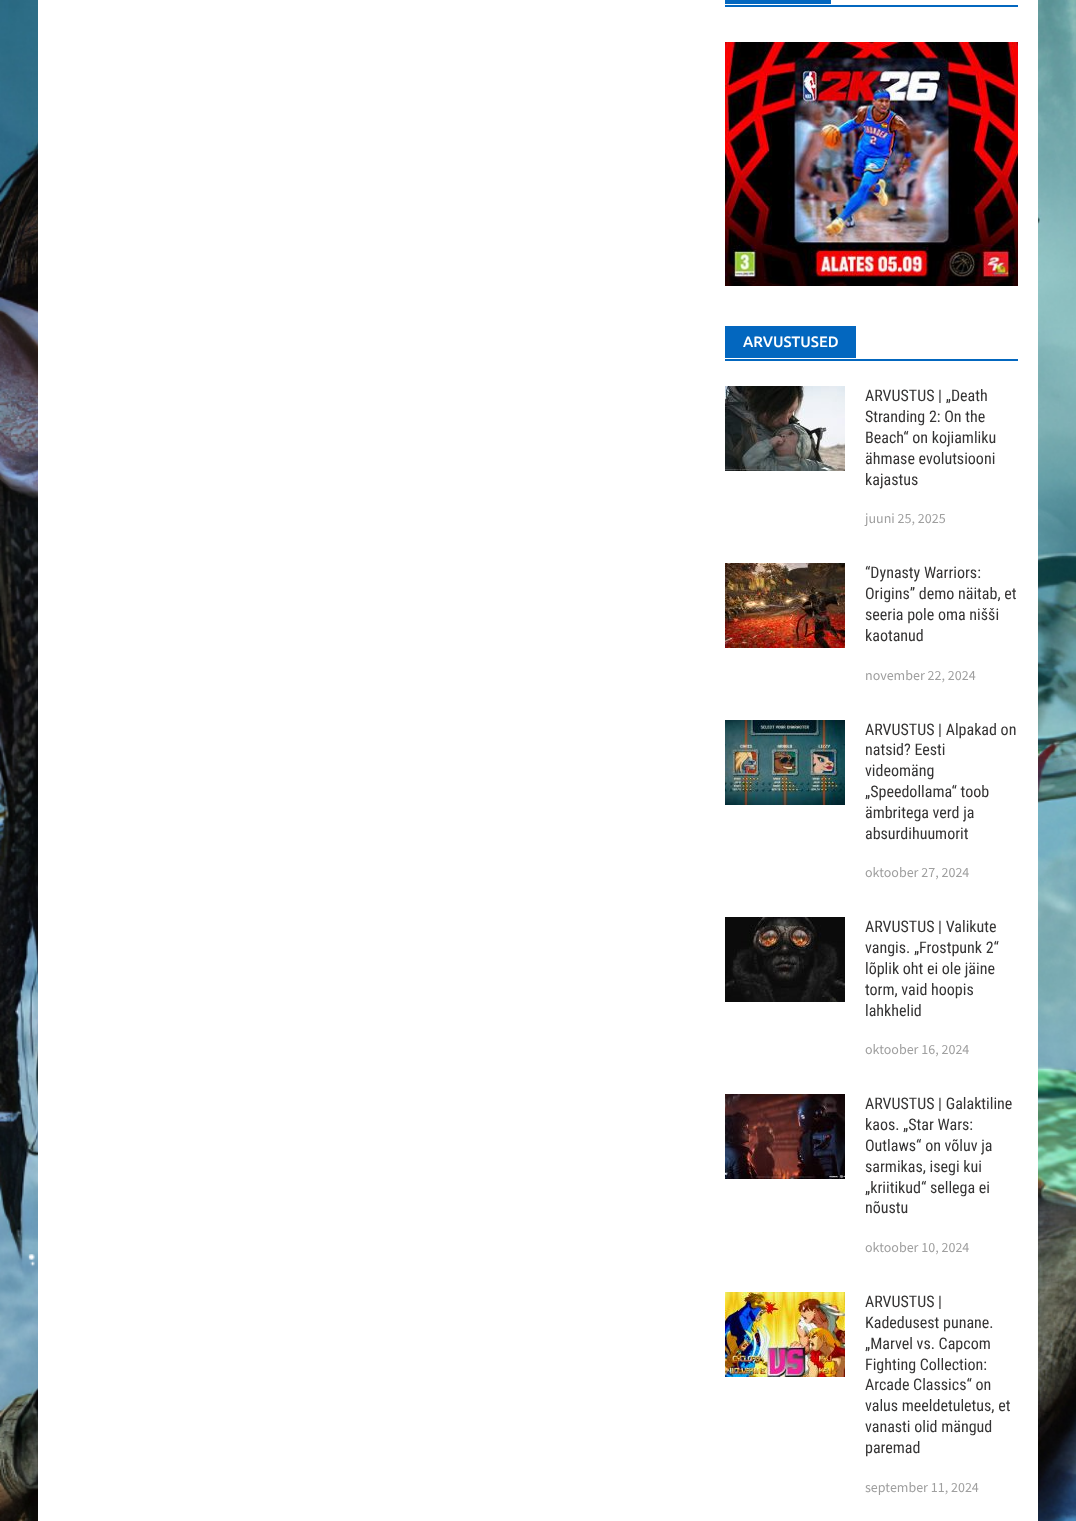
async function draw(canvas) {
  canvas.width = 1076
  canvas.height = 1521
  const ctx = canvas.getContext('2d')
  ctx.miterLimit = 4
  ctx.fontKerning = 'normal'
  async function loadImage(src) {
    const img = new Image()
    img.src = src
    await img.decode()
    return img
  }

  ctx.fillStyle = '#fff'
  ctx.fillRect(0, 0, 1076, 1521)
  ctx.drawImage(await loadImage('image0.png'), 0, 0, 1076, 1521)
  ctx.fillRect(38, 0, 1000, 1521)
  ctx.fillStyle = '#0367bf'
  ctx.fillRect(725, 5, 293, 2)
  ctx.fillRect(725, 0, 106, 4)
  ctx.drawImage(await loadImage('image1.png'), 725, 42, 293, 244)
  ctx.fillRect(725, 359, 293, 2)
  ctx.fillRect(725, 326, 131, 32)
  ctx.font = '500 15px Ubuntu'
  ctx.fillStyle = '#fff'
  ctx.fillText('ARVUSTUSED', 743, 347)
  ctx.drawImage(await loadImage('image2.png'), 725, 386, 120, 85)
  ctx.font = '16px Roboto Condensed'
  ctx.fillStyle = '#353434'
  ctx.fillText('ARVUSTUS | „Death', 865, 401)
  ctx.fillText('Stranding 2: On the', 865, 422)
  ctx.fillText('Beach“ on kojiamliku', 865, 443)
  ctx.fillText('ähmase evolutsiooni', 865, 464)
  ctx.fillText('kajastus', 865, 485)
  ctx.font = '14px Source Sans Pro'
  ctx.fillStyle = '#9f9f9f'
  ctx.fillText('juuni 25, 2025', 865, 523)
  ctx.drawImage(await loadImage('image3.png'), 725, 563, 120, 85)
  ctx.font = '16px Roboto Condensed'
  ctx.fillStyle = '#353434'
  ctx.fillText('“Dynasty Warriors:', 865, 578)
  ctx.fillText('Origins” demo näitab, et', 865, 599)
  ctx.fillText('seeria pole oma nišši', 865, 620)
  ctx.fillText('kaotanud', 865, 641)
  ctx.font = '14px Source Sans Pro'
  ctx.fillStyle = '#9f9f9f'
  ctx.fillText('november 22, 2024', 865, 680)
  ctx.drawImage(await loadImage('image4.png'), 725, 720, 120, 85)
  ctx.font = '16px Roboto Condensed'
  ctx.fillStyle = '#353434'
  ctx.fillText('ARVUSTUS | Alpakad on', 865, 735)
  ctx.fillText('natsid? Eesti', 865, 755)
  ctx.fillText('videomäng', 865, 776)
  ctx.fillText('„Speedollama“ toob', 865, 797)
  ctx.fillText('ämbritega verd ja', 865, 818)
  ctx.fillText('absurdihuumorit', 865, 839)
  ctx.font = '14px Source Sans Pro'
  ctx.fillStyle = '#9f9f9f'
  ctx.fillText('oktoober 27, 2024', 865, 877)
  ctx.drawImage(await loadImage('image5.png'), 725, 917, 120, 85)
  ctx.font = '16px Roboto Condensed'
  ctx.fillStyle = '#353434'
  ctx.fillText('ARVUSTUS | Valikute', 865, 932)
  ctx.fillText('vangis. „Frostpunk 2“', 865, 953)
  ctx.fillText('lõplik oht ei ole jäine', 865, 974)
  ctx.fillText('torm, vaid hoopis', 865, 995)
  ctx.fillText('lahkhelid', 865, 1016)
  ctx.font = '14px Source Sans Pro'
  ctx.fillStyle = '#9f9f9f'
  ctx.fillText('oktoober 16, 2024', 865, 1054)
  ctx.drawImage(await loadImage('image6.png'), 725, 1094, 120, 85)
  ctx.font = '16px Roboto Condensed'
  ctx.fillStyle = '#353434'
  ctx.fillText('ARVUSTUS | Galaktiline', 865, 1109)
  ctx.fillText('kaos. „Star Wars:', 865, 1130)
  ctx.fillText('Outlaws“ on võluv ja', 865, 1151)
  ctx.fillText('sarmikas, isegi kui', 865, 1172)
  ctx.fillText('„kriitikud“ sellega ei', 865, 1193)
  ctx.fillText('nõustu', 865, 1213)
  ctx.font = '14px Source Sans Pro'
  ctx.fillStyle = '#9f9f9f'
  ctx.fillText('oktoober 10, 2024', 865, 1252)
  ctx.drawImage(await loadImage('image7.png'), 725, 1292, 120, 85)
  ctx.font = '16px Roboto Condensed'
  ctx.fillStyle = '#353434'
  ctx.fillText('ARVUSTUS |', 865, 1307)
  ctx.fillText('Kadedusest punane.', 865, 1328)
  ctx.fillText('„Marvel vs. Capcom', 865, 1349)
  ctx.fillText('Fighting Collection:', 865, 1370)
  ctx.fillText('Arcade Classics“ on', 865, 1390)
  ctx.fillText('valus meeldetuletus, et', 865, 1411)
  ctx.fillText('vanasti olid mängud', 865, 1432)
  ctx.fillText('paremad', 865, 1453)
  ctx.font = '14px Source Sans Pro'
  ctx.fillStyle = '#9f9f9f'
  ctx.fillText('september 11, 2024', 865, 1492)
}

draw(document.querySelector('canvas'))
